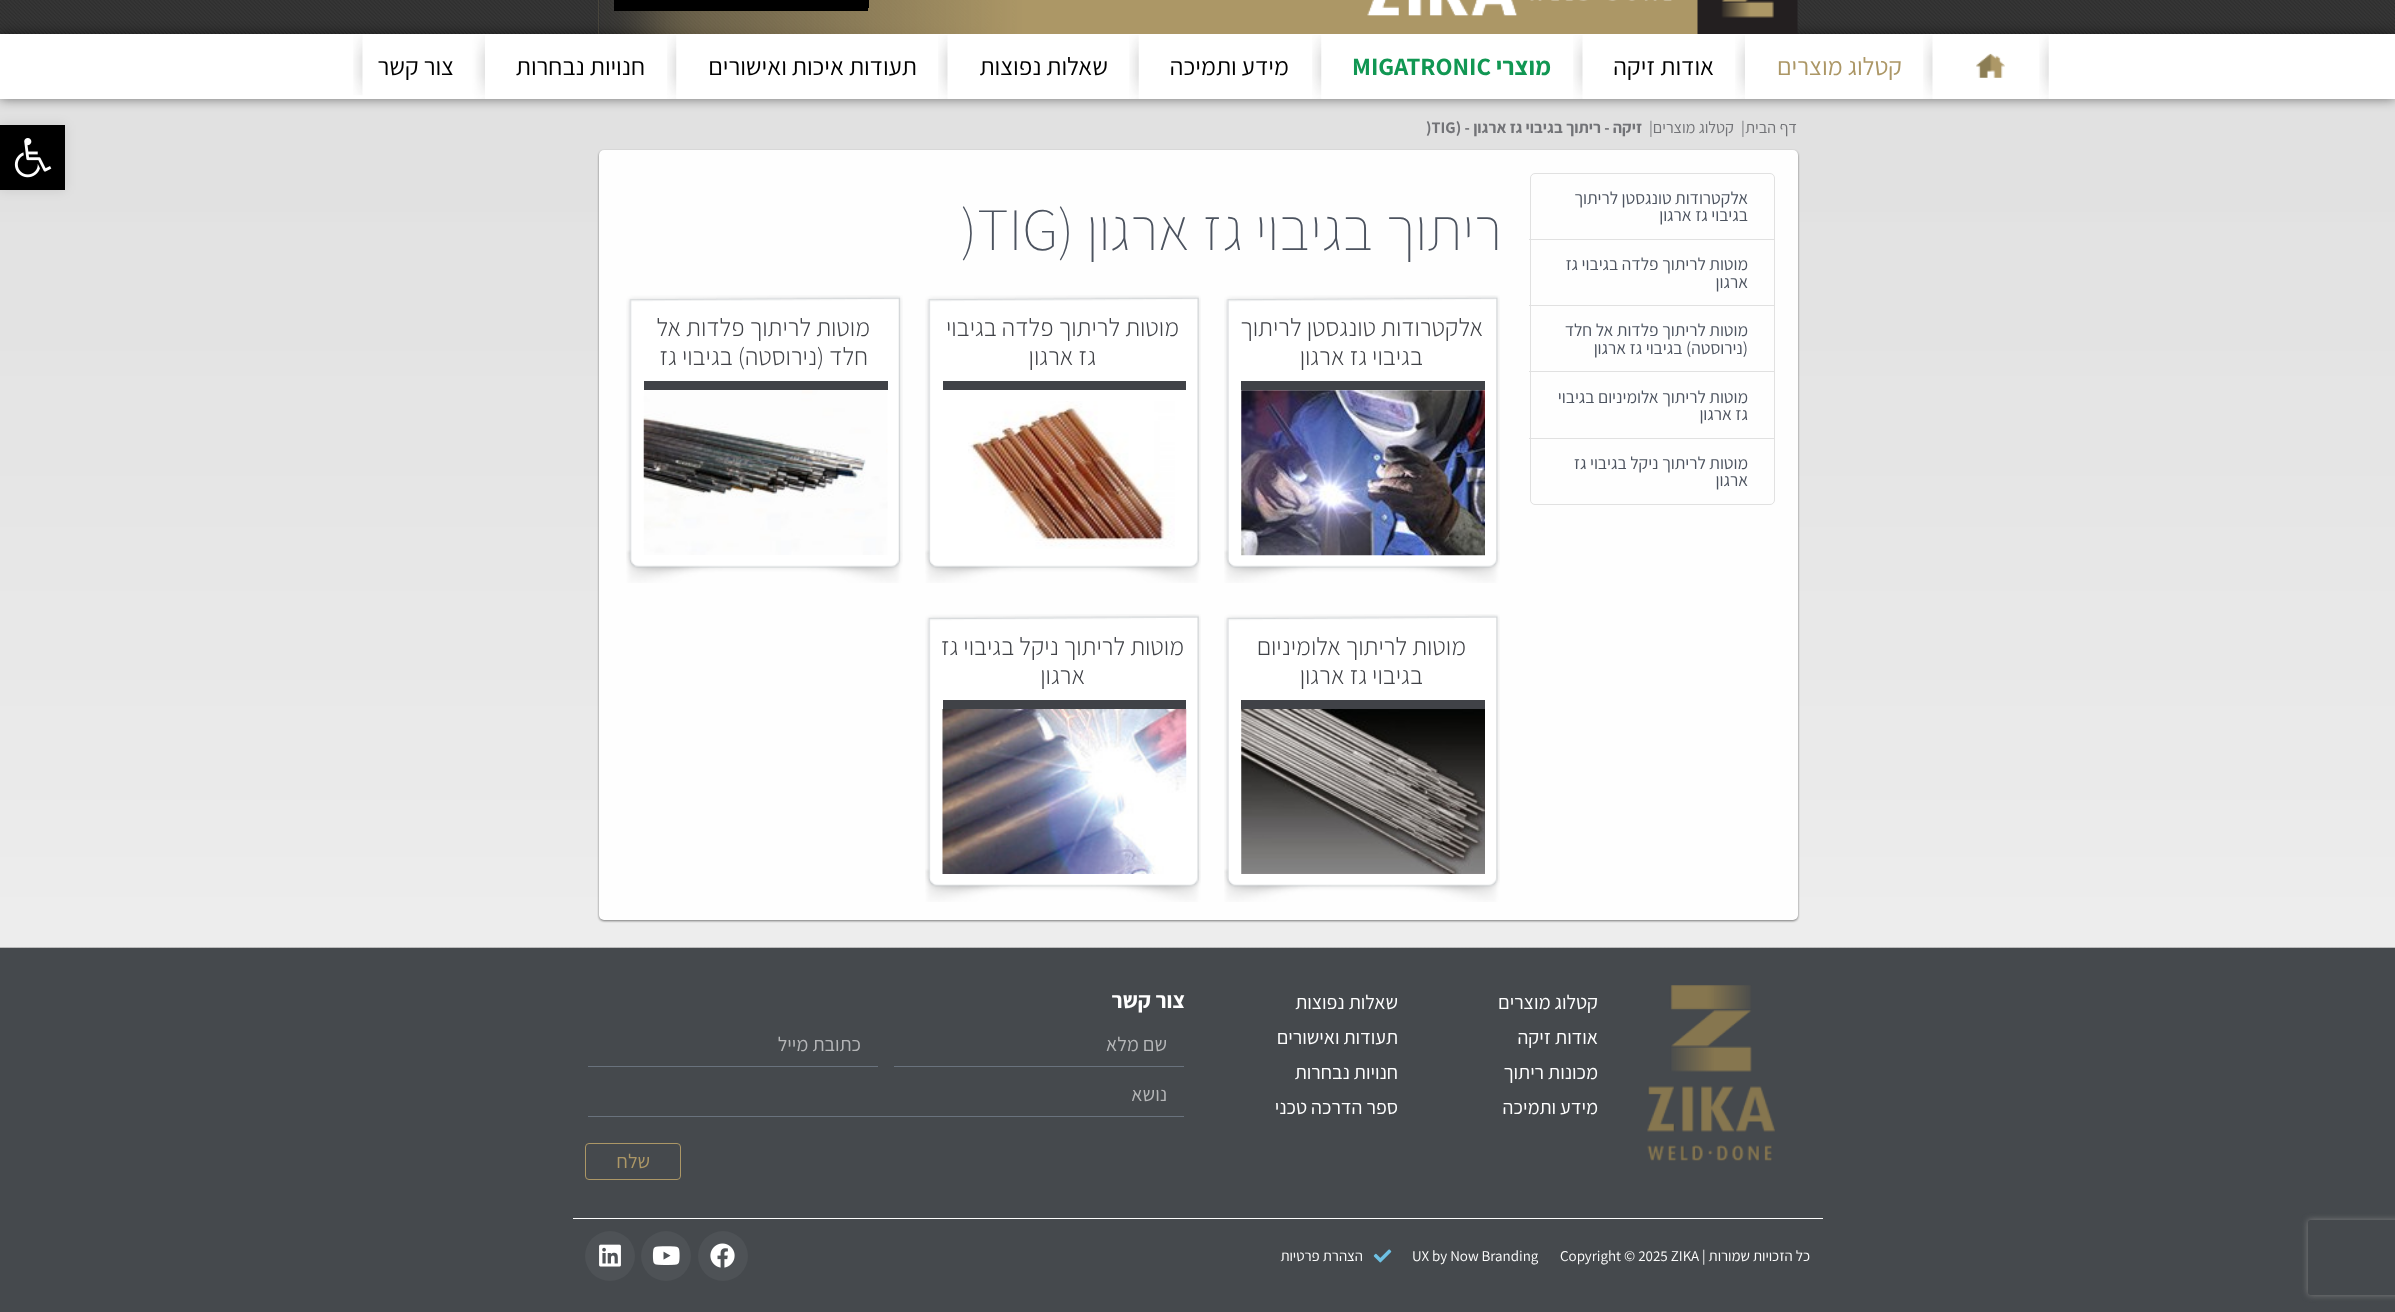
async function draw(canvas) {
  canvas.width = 2395
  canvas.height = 1312
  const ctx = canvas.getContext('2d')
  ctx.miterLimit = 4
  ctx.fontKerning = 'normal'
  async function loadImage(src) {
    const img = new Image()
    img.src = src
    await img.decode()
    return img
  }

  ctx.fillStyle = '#fff'
  ctx.fillRect(0, 0, 2395, 1312)
  ctx.drawImage(await loadImage('image0.png'), 0, 99, 2395, 849)
  ctx.drawImage(await loadImage('image1.png'), 0, 0, 2395, 34)
  ctx.fillStyle = '#00000080'
  ctx.filter = 'blur(6px)'
  ctx.beginPath()
  ctx.rect(0, 34, 2395, 65)
  ctx.fill()
  ctx.filter = 'none'
  ctx.drawImage(await loadImage('image2.png'), 598, 0, 1100, 34)
  ctx.drawImage(await loadImage('image3.png'), 1697, 0, 101, 34)
  ctx.drawImage(await loadImage('image4.png'), 1367, 0, 305, 16)
  ctx.fillStyle = '#000'
  ctx.fillRect(868, 0, 1, 8)
  ctx.fillRect(614, 0, 254, 11)
  ctx.fillStyle = '#fff'
  ctx.fillRect(0, 34, 2395, 65)
  ctx.drawImage(await loadImage('image5.png'), 2039, 35, 10, 64)
  ctx.drawImage(await loadImage('image6.png'), 1976, 53, 29, 25)
  ctx.drawImage(await loadImage('image7.png'), 1923, 35, 10, 64)
  ctx.direction = 'rtl'
  ctx.font = '25px Assistant'
  ctx.fillStyle = '#ac9766'
  ctx.fillText('קטלוג מוצרים', 1902, 75)
  ctx.drawImage(await loadImage('image8.png'), 1735, 35, 10, 64)
  ctx.fillStyle = '#000'
  ctx.fillText('אודות זיקה', 1714, 75)
  ctx.drawImage(await loadImage('image9.png'), 1573, 35, 10, 64)
  ctx.font = 'bold 25px Assistant'
  ctx.fillStyle = '#119753'
  ctx.fillText('מוצרי', 1551, 75)
  ctx.direction = 'ltr'
  ctx.fillText('MIGATRONIC', 1352, 75)
  ctx.drawImage(await loadImage('image10.png'), 1312, 35, 10, 64)
  ctx.direction = 'rtl'
  ctx.font = '25px Assistant'
  ctx.fillStyle = '#000'
  ctx.fillText('מידע ותמיכה', 1289, 75)
  ctx.drawImage(await loadImage('image11.png'), 1129, 35, 10, 64)
  ctx.fillText('שאלות נפוצות', 1108, 75)
  ctx.drawImage(await loadImage('image12.png'), 938, 35, 10, 64)
  ctx.fillText('תעודות איכות ואישורים', 917, 75)
  ctx.drawImage(await loadImage('image13.png'), 667, 35, 10, 64)
  ctx.fillText('חנויות נבחרות', 645, 75)
  ctx.drawImage(await loadImage('image14.png'), 353, 35, 132, 64)
  ctx.fillText('צור קשר', 454, 75)
  ctx.font = '16.25px Assistant'
  ctx.fillStyle = '#727377'
  ctx.fillText('דף הבית', 1797, 133)
  ctx.direction = 'ltr'
  ctx.fillText('|', 1741, 133)
  ctx.direction = 'rtl'
  ctx.fillText('קטלוג מוצרים', 1734, 133)
  ctx.direction = 'ltr'
  ctx.fillText('|', 1649, 133)
  ctx.direction = 'rtl'
  ctx.font = 'bold 16.25px Assistant'
  ctx.fillText('זיקה - ריתוך בגיבוי גז ארגון - (', 1642, 133)
  ctx.direction = 'ltr'
  ctx.fillText(')TIG', 1426, 133)
  ctx.fillStyle = '#00000080'
  ctx.filter = 'blur(1px)'
  ctx.beginPath()
  ctx.roundRect(599, 151, 1199, 770, 5)
  ctx.fill()
  ctx.filter = 'none'
  ctx.fillStyle = '#fefefe'
  ctx.beginPath()
  ctx.roundRect(599, 150, 1199, 770, 5)
  ctx.fill()
  ctx.beginPath()
  ctx.roundRect(1530.5, 173.5, 244, 331, 4.5)
  ctx.strokeStyle = '#e1e1e1'
  ctx.stroke()
  ctx.direction = 'rtl'
  ctx.font = '17.5px Assistant'
  ctx.fillStyle = '#4c535f'
  ctx.fillText('אלקטרודות טונגסטן לריתוך', 1748, 204)
  ctx.fillText('בגיבוי גז ארגון', 1748, 221)
  ctx.fillStyle = '#e1e1e1'
  ctx.fillRect(1529, 239, 245, 1)
  ctx.fillStyle = '#4c535f'
  ctx.fillText('מוטות לריתוך פלדה בגיבוי גז', 1748, 270)
  ctx.fillText('ארגון', 1748, 288)
  ctx.fillStyle = '#e1e1e1'
  ctx.fillRect(1529, 305, 245, 1)
  ctx.fillStyle = '#4c535f'
  ctx.fillText('מוטות לריתוך פלדות אל חלד', 1748, 336)
  ctx.fillText('(נירוסטה) בגיבוי גז ארגון', 1748, 354)
  ctx.fillStyle = '#e1e1e1'
  ctx.fillRect(1529, 371, 245, 1)
  ctx.fillStyle = '#4c535f'
  ctx.fillText('מוטות לריתוך אלומיניום בגיבוי', 1748, 403)
  ctx.fillText('גז ארגון', 1748, 420)
  ctx.fillStyle = '#e1e1e1'
  ctx.fillRect(1529, 438, 245, 1)
  ctx.fillStyle = '#4c535f'
  ctx.fillText('מוטות לריתוך ניקל בגיבוי גז', 1748, 469)
  ctx.fillText('ארגון', 1748, 486)
  ctx.font = '200 60px Assistant'
  ctx.fillText('ריתוך בגיבוי גז ארגון (', 1502, 250)
  ctx.direction = 'ltr'
  ctx.fillText(')TIG', 961, 250)
  ctx.drawImage(await loadImage('image15.png'), 1224, 295, 276, 288)
  ctx.direction = 'rtl'
  ctx.font = '300 25px Assistant'
  ctx.fillStyle = '#404247'
  ctx.fillText('אלקטרודות טונגסטן לריתוך', 1483, 336)
  ctx.fillText('בגיבוי גז ארגון', 1423, 365)
  ctx.fillRect(1241, 381, 244, 9)
  ctx.drawImage(await loadImage('image16.png'), 1241, 390, 244, 166)
  ctx.drawImage(await loadImage('image17.png'), 925, 295, 276, 288)
  ctx.fillText('מוטות לריתוך פלדה בגיבוי', 1179, 336)
  ctx.fillText('גז ארגון', 1096, 365)
  ctx.fillRect(943, 381, 243, 9)
  ctx.drawImage(await loadImage('image18.png'), 968, 401, 207, 148)
  ctx.drawImage(await loadImage('image19.png'), 626, 295, 277, 288)
  ctx.fillText('מוטות לריתוך פלדות אל', 870, 336)
  ctx.fillText('חלד (נירוסטה) בגיבוי גז', 868, 365)
  ctx.fillRect(644, 381, 244, 9)
  ctx.drawImage(await loadImage('image20.png'), 643, 390, 245, 165)
  ctx.drawImage(await loadImage('image21.png'), 1224, 614, 276, 288)
  ctx.fillText('מוטות לריתוך אלומיניום', 1466, 655)
  ctx.fillText('בגיבוי גז ארגון', 1423, 684)
  ctx.fillRect(1241, 700, 244, 9)
  ctx.drawImage(await loadImage('image22.png'), 1241, 709, 244, 165)
  ctx.drawImage(await loadImage('image23.png'), 925, 614, 276, 288)
  ctx.fillText('מוטות לריתוך ניקל בגיבוי גז', 1184, 655)
  ctx.fillText('ארגון', 1085, 684)
  ctx.fillRect(943, 700, 243, 9)
  ctx.drawImage(await loadImage('image24.png'), 942, 709, 245, 165)
  ctx.fillStyle = '#0000001a'
  ctx.filter = 'blur(6px)'
  ctx.beginPath()
  ctx.rect(0, 125, 65, 65)
  ctx.fill()
  ctx.filter = 'none'
  ctx.fillStyle = '#000'
  ctx.fillRect(0, 125, 65, 65)
  ctx.drawImage(await loadImage('image25.png'), 14, 138, 38, 40)
  ctx.fillStyle = '#45494d'
  ctx.fillRect(0, 948, 2395, 364)
  ctx.save()
  ctx.beginPath()
  ctx.moveTo(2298, 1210)
  ctx.lineTo(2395, 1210)
  ctx.lineTo(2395, 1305)
  ctx.lineTo(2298, 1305)
  ctx.closePath()
  ctx.moveTo(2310.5, 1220)
  ctx.lineTo(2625.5, 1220)
  ctx.bezierCurveTo(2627, 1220, 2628, 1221, 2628, 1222.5)
  ctx.lineTo(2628, 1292.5)
  ctx.bezierCurveTo(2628, 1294, 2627, 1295, 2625.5, 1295)
  ctx.lineTo(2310.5, 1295)
  ctx.bezierCurveTo(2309, 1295, 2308, 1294, 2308, 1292.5)
  ctx.lineTo(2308, 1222.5)
  ctx.bezierCurveTo(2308, 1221, 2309, 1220, 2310.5, 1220)
  ctx.closePath()
  ctx.clip('evenodd')
  ctx.fillStyle = '#808080'
  ctx.filter = 'blur(3px)'
  ctx.beginPath()
  ctx.roundRect(2308, 1220, 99, 75, 2.5)
  ctx.fill()
  ctx.filter = 'none'
  ctx.restore()
  ctx.drawImage(await loadImage('image26.png'), 0, 947, 2395, 1)
  ctx.drawImage(await loadImage('image27.png'), 1647, 985, 128, 176)
  ctx.font = '20px Assistant'
  ctx.fillStyle = '#fff'
  ctx.fillText('קטלוג מוצרים', 1598, 1009)
  ctx.fillText('אודות זיקה', 1598, 1044)
  ctx.fillText('מכונות ריתוך', 1598, 1079)
  ctx.fillText('מידע ותמיכה', 1598, 1114)
  ctx.fillText('שאלות נפוצות', 1398, 1009)
  ctx.fillText('תעודות ואישורים', 1398, 1044)
  ctx.fillText('חנויות נבחרות', 1398, 1079)
  ctx.fillText('ספר הדרכה טכני', 1398, 1114)
  ctx.font = 'bold 22.5px Assistant'
  ctx.fillText('צור קשר', 1185, 1008)
  ctx.fillStyle = '#69727d'
  ctx.fillRect(894, 1066, 290, 1)
  ctx.font = '20px Assistant'
  ctx.fillStyle = '#b5b6b8'
  ctx.fillText('שם מלא', 1167, 1051)
  ctx.fillStyle = '#69727d'
  ctx.fillRect(588, 1066, 290, 1)
  ctx.fillStyle = '#b5b6b8'
  ctx.fillText('כתובת מייל', 861, 1051)
  ctx.fillStyle = '#69727d'
  ctx.fillRect(588, 1116, 596, 1)
  ctx.fillStyle = '#b5b6b8'
  ctx.fillText('נושא', 1167, 1101)
  ctx.beginPath()
  ctx.roundRect(585.5, 1143.5, 95, 36, 3.5)
  ctx.strokeStyle = '#ac9766'
  ctx.stroke()
  ctx.fillStyle = '#ac9766'
  ctx.fillText('שלח', 650, 1168)
  ctx.fillStyle = '#fdfdfd'
  ctx.fillRect(573, 1218, 1250, 1)
  ctx.font = '15px Assistant'
  ctx.fillStyle = '#fff'
  ctx.fillText('כל הזכויות שמורות |', 1810, 1261)
  ctx.direction = 'ltr'
  ctx.fillText('Copyright © 2025 ZIKA', 1560, 1261)
  ctx.fillText('UX by Now Branding', 1412, 1261)
  ctx.drawImage(await loadImage('image28.png'), 1373, 1249, 19, 14)
  ctx.direction = 'rtl'
  ctx.fillText('הצהרת פרטיות', 1363, 1261)
  ctx.fillStyle = '#4e5256'
  ctx.beginPath()
  ctx.arc(723, 1256, 25, 0, 2 * Math.PI)
  ctx.fill()
  ctx.drawImage(await loadImage('image29.png'), 710, 1243, 25, 25)
  ctx.beginPath()
  ctx.arc(666, 1256, 25, 0, 2 * Math.PI)
  ctx.fill()
  ctx.drawImage(await loadImage('image30.png'), 652, 1246, 28, 19)
  ctx.beginPath()
  ctx.arc(610, 1256, 25, 0, 2 * Math.PI)
  ctx.fill()
  ctx.drawImage(await loadImage('image31.png'), 599, 1244, 22, 23)
}

draw(document.querySelector('canvas'))
